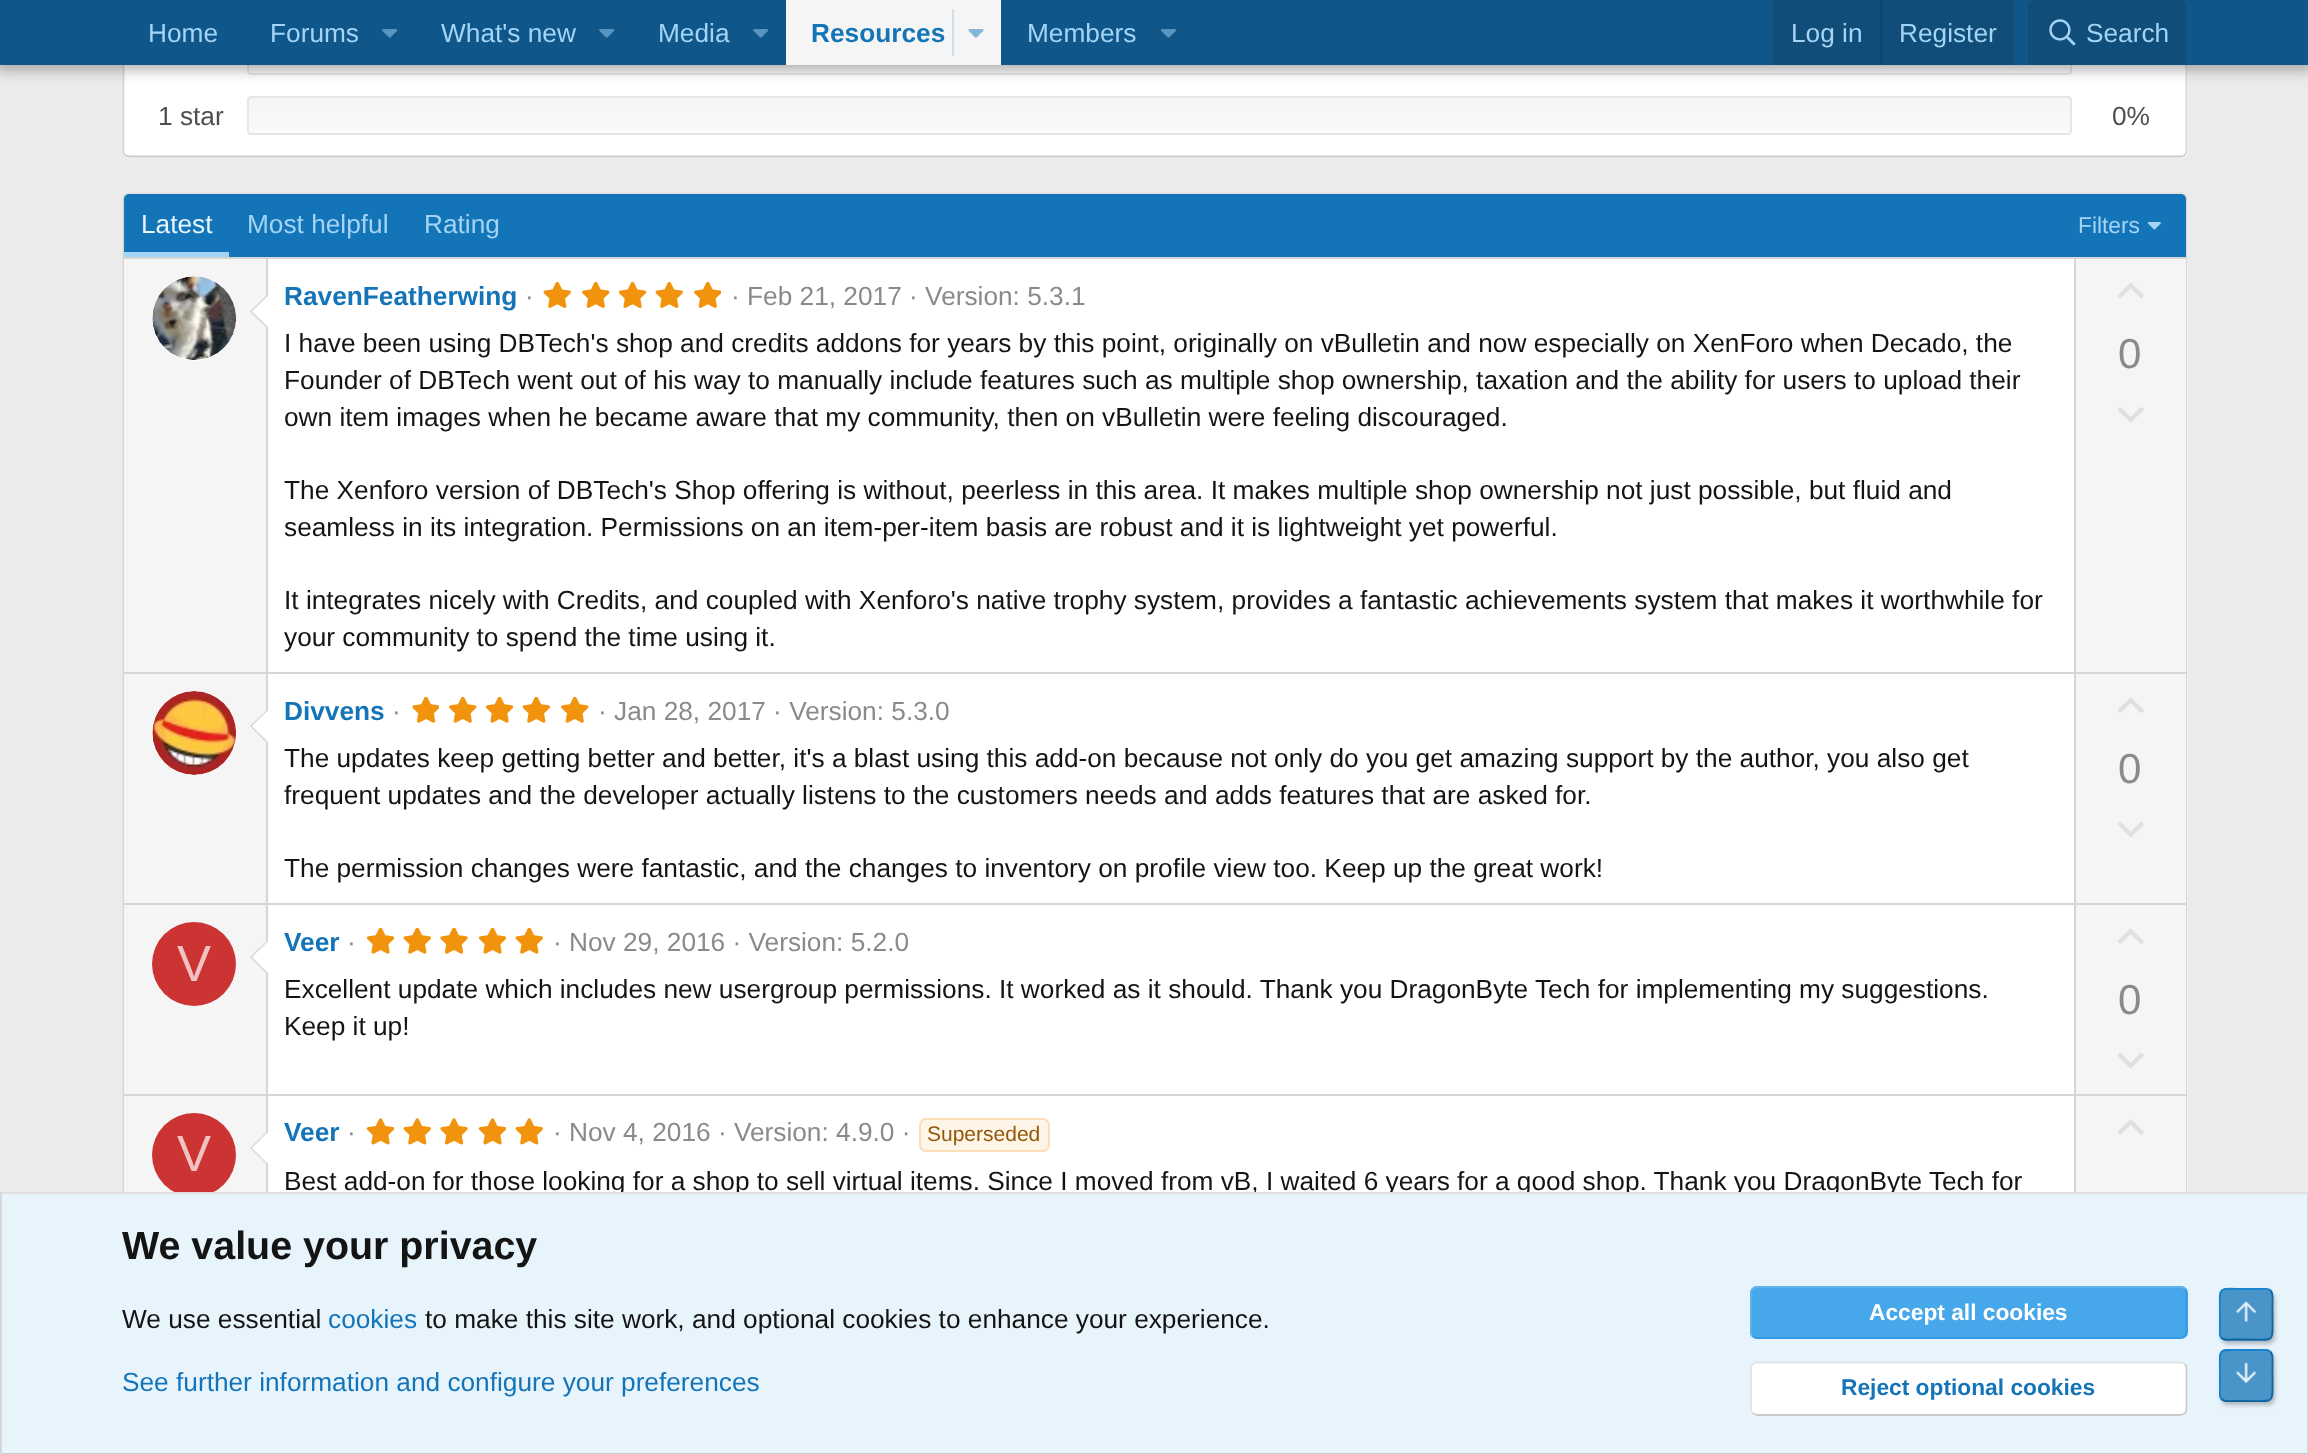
async function draw(canvas) {
  canvas.width = 2308
  canvas.height = 1454
  const ctx = canvas.getContext('2d')
  ctx.miterLimit = 4
  ctx.fontKerning = 'normal'
  async function loadImage(src) {
    const img = new Image()
    img.src = src
    await img.decode()
    return img
  }
  let gradient

  ctx.fillStyle = '#ebebeb'
  ctx.fillRect(0, 0, 2308, 1454)
  ctx.fillStyle = '#fff'
  ctx.beginPath()
  ctx.roundRect(123, -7, 2065, 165, 7)
  ctx.fill()
  ctx.beginPath()
  ctx.moveTo(2185, -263.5)
  ctx.bezierCurveTo(2186, -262, 2186.5, -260.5, 2186.5, -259)
  ctx.lineTo(2186.5, 150.5)
  ctx.bezierCurveTo(2186.5, 152, 2186, 153.5, 2185, 155)
  ctx.strokeStyle = '#d6d6d6'
  ctx.lineWidth = 1.8
  ctx.stroke()
  ctx.beginPath()
  ctx.moveTo(2185, 155)
  ctx.bezierCurveTo(2183.5, 156, 2182, 156.5, 2180.5, 156.5)
  ctx.lineTo(129.5, 156.5)
  ctx.bezierCurveTo(128, 156.5, 126.5, 156, 125, 155)
  ctx.strokeStyle = '#ccc'
  ctx.stroke()
  ctx.beginPath()
  ctx.moveTo(125, 155)
  ctx.bezierCurveTo(124, 153.5, 123.5, 152, 123.5, 150.5)
  ctx.lineTo(123.5, -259)
  ctx.bezierCurveTo(123.5, -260.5, 124, -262, 125, -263.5)
  ctx.strokeStyle = '#d6d6d6'
  ctx.stroke()
  ctx.save()
  ctx.beginPath()
  ctx.roundRect(247, 37, 1825, 38, 4)
  ctx.clip()
  gradient = ctx.createLinearGradient(1159, 38, 1159, 74)
  gradient.addColorStop(0, '#f5f5f5')
  gradient.addColorStop(1, '#fafafa')
  ctx.fillStyle = gradient
  ctx.fillRect(247, 65, 1825, 9)
  ctx.restore()
  ctx.beginPath()
  ctx.roundRect(248, 38, 1823, 36, 3)
  ctx.strokeStyle = '#e6e6e6'
  ctx.lineWidth = 2
  ctx.stroke()
  ctx.fillStyle = '#0000004d'
  ctx.filter = 'blur(7px)'
  ctx.beginPath()
  ctx.rect(-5, -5, 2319, 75)
  ctx.fill()
  ctx.filter = 'none'
  ctx.fillStyle = '#0f578a'
  ctx.fillRect(0, 0, 2308, 65)
  ctx.font = '26.25px Liberation Sans'
  ctx.fillStyle = '#a3d4f5'
  ctx.fillText('Home', 148, 42)
  ctx.fillText('Forums', 270, 42)
  ctx.drawImage(await loadImage('image0.png'), 382, 29, 16, 9)
  ctx.fillText('What\'s new', 441, 42)
  ctx.drawImage(await loadImage('image0.png'), 599, 29, 16, 9)
  ctx.fillText('Media', 658, 42)
  ctx.drawImage(await loadImage('image1.png'), 753, 29, 15, 9)
  ctx.fillStyle = '#f5f5f5'
  ctx.fillRect(786, 0, 215, 65)
  ctx.font = 'bold 26.25px Liberation Sans'
  ctx.fillStyle = '#1474b8'
  ctx.fillText('Resources', 811, 42)
  ctx.fillStyle = '#cedfeb'
  ctx.fillRect(952, 9, 2, 47)
  ctx.drawImage(await loadImage('image2.png'), 968, 29, 16, 9)
  ctx.font = '26.25px Liberation Sans'
  ctx.fillStyle = '#a3d4f5'
  ctx.fillText('Members', 1027, 42)
  ctx.drawImage(await loadImage('image3.png'), 1160, 29, 16, 9)
  ctx.fillStyle = '#104d78'
  ctx.fillRect(1773, 0, 241, 65)
  ctx.fillStyle = '#a3d4f5'
  ctx.fillText('Log in', 1791, 42)
  ctx.fillStyle = '#114469'
  ctx.fillRect(1880, 0, 2, 65)
  ctx.fillStyle = '#a3d4f5'
  ctx.fillText('Register', 1899, 42)
  ctx.fillStyle = '#104d78'
  ctx.beginPath()
  ctx.roundRect(2028, 0, 158, 65, [7, 7, 0, 0])
  ctx.fill()
  ctx.drawImage(await loadImage('image4.png'), 2049, 19, 27, 27)
  ctx.fillStyle = '#a3d4f5'
  ctx.fillText('Search', 2086, 42)
  ctx.fillStyle = '#4f4f4f'
  ctx.fillText('1 star', 158, 125)
  ctx.save()
  ctx.beginPath()
  ctx.roundRect(247, 96, 1825, 39, 4)
  ctx.clip()
  gradient = ctx.createLinearGradient(1159, 98, 1159, 133)
  gradient.addColorStop(0, '#f5f5f5')
  gradient.addColorStop(1, '#fafafa')
  ctx.fillStyle = gradient
  ctx.fillRect(247, 98, 1825, 35)
  ctx.restore()
  ctx.beginPath()
  ctx.roundRect(248, 97, 1823, 37, 3)
  ctx.stroke()
  ctx.fillText('0%', 2112, 125)
  ctx.fillStyle = '#fff'
  ctx.beginPath()
  ctx.roundRect(123, 193, 2065, 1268, 7)
  ctx.fill()
  ctx.beginPath()
  ctx.moveTo(125, 195)
  ctx.bezierCurveTo(126.5, 194, 128, 193.5, 129.5, 193.5)
  ctx.lineTo(2180.5, 193.5)
  ctx.bezierCurveTo(2182, 193.5, 2183.5, 194, 2185, 195)
  ctx.strokeStyle = '#e0e0e0'
  ctx.lineWidth = 1.8
  ctx.stroke()
  ctx.beginPath()
  ctx.moveTo(2185, 195)
  ctx.bezierCurveTo(2186, 196.5, 2186.5, 198, 2186.5, 199.5)
  ctx.lineTo(2186.5, 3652)
  ctx.bezierCurveTo(2186.5, 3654, 2186, 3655.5, 2185, 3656.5)
  ctx.strokeStyle = '#d6d6d6'
  ctx.stroke()
  ctx.beginPath()
  ctx.moveTo(125, 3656.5)
  ctx.bezierCurveTo(124, 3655.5, 123.5, 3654, 123.5, 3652)
  ctx.lineTo(123.5, 199.5)
  ctx.bezierCurveTo(123.5, 198, 124, 196.5, 125, 195)
  ctx.stroke()
  ctx.fillStyle = '#1474b8'
  ctx.beginPath()
  ctx.roundRect(124, 194, 2062, 65, [5, 5, 0, 0])
  ctx.fill()
  ctx.fillStyle = '#d6d6d6'
  ctx.fillRect(124, 257, 2062, 2)
  ctx.fillStyle = '#a3d4f5'
  ctx.fillRect(124, 252, 105, 5)
  ctx.fillStyle = '#e8f4fc'
  ctx.fillText('Latest', 141, 233)
  ctx.fillStyle = '#a3d4f5'
  ctx.fillText('Most helpful', 247, 233)
  ctx.fillText('Rating', 424, 233)
  ctx.font = '22.75px Liberation Sans'
  ctx.fillText('Filters', 2078, 233)
  ctx.drawImage(await loadImage('image5.png'), 2147, 222, 14, 8)
  ctx.fillStyle = '#f5f5f5'
  ctx.fillRect(124, 259, 142, 413)
  ctx.fillStyle = '#d6d6d6'
  ctx.fillRect(266, 259, 2, 413)
  ctx.fillStyle = '#fff'
  ctx.beginPath()
  ctx.arc(194, 319, 42, 0, 2 * Math.PI)
  ctx.fill()
  ctx.drawImage(await loadImage('image6.png'), 152, 276, 84, 84)
  ctx.fillStyle = '#d6d6d6'
  ctx.beginPath()
  ctx.moveTo(268, 294)
  ctx.lineTo(268, 329)
  ctx.lineTo(250, 311.5)
  ctx.closePath()
  ctx.fill()
  ctx.fillStyle = '#fff'
  ctx.beginPath()
  ctx.moveTo(268, 296)
  ctx.lineTo(268, 327)
  ctx.lineTo(252, 311.5)
  ctx.closePath()
  ctx.fill()
  ctx.font = 'bold 26.25px Liberation Sans'
  ctx.fillStyle = '#1474b8'
  ctx.fillText('RavenFeatherwing', 284, 305)
  ctx.font = '26.25px Liberation Sans'
  ctx.fillStyle = '#8a8a8a'
  ctx.fillText('·', 525, 305)
  ctx.drawImage(await loadImage('image7.png'), 543, 282, 28, 26)
  ctx.drawImage(await loadImage('image8.png'), 582, 282, 28, 26)
  ctx.drawImage(await loadImage('image9.png'), 618, 282, 29, 26)
  ctx.drawImage(await loadImage('image7.png'), 655, 282, 28, 26)
  ctx.drawImage(await loadImage('image10.png'), 694, 282, 27, 26)
  ctx.fillText('· Feb 21, 2017 · Version: 5.3.1', 731, 305)
  ctx.fillStyle = '#141414'
  ctx.fillText('I have been using DBTech\'s shop and credits addons for years by this point, originally on vBulletin and now especially on XenForo when Decado, the', 284, 352)
  ctx.fillText('Founder of DBTech went out of his way to manually include features such as multiple shop ownership, taxation and the ability for users to upload their', 284, 389)
  ctx.fillText('own item images when he became aware that my community, then on vBulletin were feeling discouraged.', 284, 426)
  ctx.fillText('The Xenforo version of DBTech\'s Shop offering is without, peerless in this area. It makes multiple shop ownership not just possible, but fluid and', 284, 499)
  ctx.fillText('seamless in its integration. Permissions on an item-per-item basis are robust and it is lightweight yet powerful.', 284, 536)
  ctx.fillText('It integrates nicely with Credits, and coupled with Xenforo\'s native trophy system, provides a fantastic achievements system that makes it worthwhile for', 284, 609)
  ctx.fillText('your community to spend the time using it.', 284, 646)
  ctx.fillStyle = '#f5f5f5'
  ctx.fillRect(2076, 259, 110, 413)
  ctx.fillStyle = '#d6d6d6'
  ctx.fillRect(2074, 259, 2, 413)
  ctx.drawImage(await loadImage('image11.png'), 2118, 282, 26, 17)
  ctx.font = '42px Liberation Sans'
  ctx.fillStyle = '#8a8a8a'
  ctx.fillText('0', 2118, 368)
  ctx.drawImage(await loadImage('image12.png'), 2118, 407, 26, 16)
  ctx.fillStyle = '#d6d6d6'
  ctx.fillRect(124, 672, 2062, 2)
  ctx.fillStyle = '#f5f5f5'
  ctx.fillRect(124, 674, 142, 229)
  ctx.fillStyle = '#d6d6d6'
  ctx.fillRect(266, 674, 2, 229)
  ctx.fillStyle = '#fff'
  ctx.beginPath()
  ctx.arc(194, 733, 42, 0, 2 * Math.PI)
  ctx.fill()
  ctx.drawImage(await loadImage('image13.png'), 152, 691, 84, 84)
  ctx.fillStyle = '#d6d6d6'
  ctx.beginPath()
  ctx.moveTo(268, 709)
  ctx.lineTo(268, 744)
  ctx.lineTo(250, 726)
  ctx.closePath()
  ctx.fill()
  ctx.fillStyle = '#fff'
  ctx.beginPath()
  ctx.moveTo(268, 710.5)
  ctx.lineTo(268, 742)
  ctx.lineTo(252, 726)
  ctx.closePath()
  ctx.fill()
  ctx.font = 'bold 26.25px Liberation Sans'
  ctx.fillStyle = '#1474b8'
  ctx.fillText('Divvens', 284, 720)
  ctx.font = '26.25px Liberation Sans'
  ctx.fillStyle = '#8a8a8a'
  ctx.fillText('·', 392, 720)
  ctx.drawImage(await loadImage('image14.png'), 412, 697, 27, 26)
  ctx.drawImage(await loadImage('image15.png'), 449, 697, 28, 26)
  ctx.drawImage(await loadImage('image16.png'), 485, 697, 29, 26)
  ctx.drawImage(await loadImage('image17.png'), 522, 697, 28, 26)
  ctx.drawImage(await loadImage('image15.png'), 561, 697, 28, 26)
  ctx.fillText('· Jan 28, 2017 · Version: 5.3.0', 598, 720)
  ctx.fillStyle = '#141414'
  ctx.fillText('The updates keep getting better and better, it\'s a blast using this add-on because not only do you get amazing support by the author, you also get', 284, 767)
  ctx.fillText('frequent updates and the developer actually listens to the customers needs and adds features that are asked for.', 284, 804)
  ctx.fillText('The permission changes were fantastic, and the changes to inventory on profile view too. Keep up the great work!', 284, 877)
  ctx.fillStyle = '#f5f5f5'
  ctx.fillRect(2076, 674, 110, 229)
  ctx.fillStyle = '#d6d6d6'
  ctx.fillRect(2074, 674, 2, 229)
  ctx.drawImage(await loadImage('image18.png'), 2118, 697, 26, 16)
  ctx.font = '42px Liberation Sans'
  ctx.fillStyle = '#8a8a8a'
  ctx.fillText('0', 2118, 783)
  ctx.drawImage(await loadImage('image19.png'), 2118, 821, 26, 17)
  ctx.fillStyle = '#d6d6d6'
  ctx.fillRect(124, 903, 2062, 2)
  ctx.fillStyle = '#f5f5f5'
  ctx.fillRect(124, 905, 142, 189)
  ctx.fillStyle = '#d6d6d6'
  ctx.fillRect(266, 905, 2, 189)
  ctx.fillStyle = '#c33'
  ctx.beginPath()
  ctx.arc(194, 964, 42, 0, 2 * Math.PI)
  ctx.fill()
  ctx.font = '51px Liberation Sans'
  ctx.fillStyle = '#f0c2c2'
  ctx.fillText('V', 177, 981)
  ctx.fillStyle = '#d6d6d6'
  ctx.beginPath()
  ctx.moveTo(268, 940)
  ctx.lineTo(268, 975)
  ctx.lineTo(250, 957)
  ctx.closePath()
  ctx.fill()
  ctx.fillStyle = '#fff'
  ctx.beginPath()
  ctx.moveTo(268, 941.5)
  ctx.lineTo(268, 973)
  ctx.lineTo(252, 957)
  ctx.closePath()
  ctx.fill()
  ctx.font = 'bold 26.25px Liberation Sans'
  ctx.fillStyle = '#1474b8'
  ctx.fillText('Veer', 284, 951)
  ctx.font = '26.25px Liberation Sans'
  ctx.fillStyle = '#8a8a8a'
  ctx.fillText('·', 347, 951)
  ctx.drawImage(await loadImage('image16.png'), 366, 928, 29, 26)
  ctx.drawImage(await loadImage('image17.png'), 403, 928, 28, 26)
  ctx.drawImage(await loadImage('image20.png'), 440, 928, 28, 26)
  ctx.drawImage(await loadImage('image21.png'), 478, 928, 28, 26)
  ctx.drawImage(await loadImage('image17.png'), 515, 928, 28, 26)
  ctx.fillText('· Nov 29, 2016 · Version: 5.2.0', 553, 951)
  ctx.fillStyle = '#141414'
  ctx.fillText('Excellent update which includes new usergroup permissions. It worked as it should. Thank you DragonByte Tech for implementing my suggestions.', 284, 998)
  ctx.fillText('Keep it up!', 284, 1035)
  ctx.fillStyle = '#f5f5f5'
  ctx.fillRect(2076, 905, 110, 189)
  ctx.fillStyle = '#d6d6d6'
  ctx.fillRect(2074, 905, 2, 189)
  ctx.drawImage(await loadImage('image18.png'), 2118, 928, 26, 16)
  ctx.font = '42px Liberation Sans'
  ctx.fillStyle = '#8a8a8a'
  ctx.fillText('0', 2118, 1014)
  ctx.drawImage(await loadImage('image19.png'), 2118, 1052, 26, 17)
  ctx.fillStyle = '#d6d6d6'
  ctx.fillRect(124, 1094, 2062, 2)
  ctx.fillStyle = '#f5f5f5'
  ctx.fillRect(124, 1096, 142, 96)
  ctx.fillStyle = '#d6d6d6'
  ctx.fillRect(266, 1096, 2, 96)
  ctx.fillStyle = '#c33'
  ctx.beginPath()
  ctx.arc(194, 1155, 42, 0, 2 * Math.PI)
  ctx.fill()
  ctx.font = '51px Liberation Sans'
  ctx.fillStyle = '#f0c2c2'
  ctx.fillText('V', 177, 1171)
  ctx.fillStyle = '#d6d6d6'
  ctx.beginPath()
  ctx.moveTo(268, 1130.5)
  ctx.lineTo(268, 1165.5)
  ctx.lineTo(250, 1148)
  ctx.closePath()
  ctx.fill()
  ctx.fillStyle = '#fff'
  ctx.beginPath()
  ctx.moveTo(268, 1132)
  ctx.lineTo(268, 1164)
  ctx.lineTo(252, 1148)
  ctx.closePath()
  ctx.fill()
  ctx.font = 'bold 26.25px Liberation Sans'
  ctx.fillStyle = '#1474b8'
  ctx.fillText('Veer', 284, 1141)
  ctx.font = '26.25px Liberation Sans'
  ctx.fillStyle = '#8a8a8a'
  ctx.fillText('·', 347, 1141)
  ctx.drawImage(await loadImage('image22.png'), 366, 1118, 29, 27)
  ctx.drawImage(await loadImage('image23.png'), 403, 1118, 28, 27)
  ctx.drawImage(await loadImage('image24.png'), 440, 1118, 28, 27)
  ctx.drawImage(await loadImage('image25.png'), 478, 1118, 28, 27)
  ctx.drawImage(await loadImage('image23.png'), 515, 1118, 28, 27)
  ctx.fillText('· Nov 4, 2016 · Version: 4.9.0 ·', 553, 1141)
  ctx.fillStyle = '#fef4e7'
  ctx.beginPath()
  ctx.roundRect(920, 1119, 129, 32, 6)
  ctx.fill()
  ctx.strokeStyle = '#fbdeb6'
  ctx.lineWidth = 2
  ctx.stroke()
  ctx.font = '21px Liberation Sans'
  ctx.fillStyle = '#915808'
  ctx.fillText('Superseded', 927, 1141)
  ctx.font = '26.25px Liberation Sans'
  ctx.fillStyle = '#141414'
  ctx.fillText('Best add-on for those looking for a shop to sell virtual items. Since I moved from vB, I waited 6 years for a good shop. Thank you DragonByte Tech for', 284, 1190)
  ctx.fillStyle = '#f5f5f5'
  ctx.fillRect(2076, 1096, 110, 96)
  ctx.fillStyle = '#d6d6d6'
  ctx.fillRect(2074, 1096, 2, 96)
  ctx.drawImage(await loadImage('image26.png'), 2118, 1119, 26, 16)
  ctx.fillStyle = '#e8f4fc'
  ctx.fillRect(2, 1194, 2305, 259)
  ctx.fillStyle = '#e0e0e0'
  ctx.fillRect(0, 1192, 2308, 2)
  ctx.fillStyle = '#d6d6d6'
  ctx.fillRect(2307, 1192, 1, 262)
  ctx.fillStyle = '#ccc'
  ctx.fillRect(0, 1453, 2308, 1)
  ctx.fillStyle = '#d6d6d6'
  ctx.fillRect(0, 1192, 2, 262)
  ctx.font = 'bold 39.4px Liberation Sans'
  ctx.fillStyle = '#141414'
  ctx.fillText('We value your privacy', 122, 1259)
  ctx.font = '26.25px Liberation Sans'
  ctx.fillText('We use essential', 122, 1328)
  ctx.fillStyle = '#1474b8'
  ctx.fillText('cookies', 328, 1328)
  ctx.fillStyle = '#141414'
  ctx.fillText('to make this site work, and optional cookies to enhance your experience.', 425, 1328)
  ctx.fillStyle = '#1474b8'
  ctx.fillText('See further information and configure your preferences', 122, 1391)
  ctx.fillStyle = '#47a7eb'
  ctx.beginPath()
  ctx.roundRect(1750, 1286, 438, 53, 7)
  ctx.fill()
  ctx.beginPath()
  ctx.moveTo(2185, 1289)
  ctx.bezierCurveTo(2186, 1290, 2186.5, 1291.5, 2186.5, 1293)
  ctx.lineTo(2186.5, 1332)
  ctx.bezierCurveTo(2186.5, 1333.5, 2186, 1335, 2185, 1336)
  ctx.bezierCurveTo(2183.5, 1337, 2182, 1338, 2180.5, 1338)
  ctx.lineTo(1757, 1338)
  ctx.bezierCurveTo(1755.5, 1338, 1754, 1337, 1752.5, 1336)
  ctx.strokeStyle = '#309ce8'
  ctx.lineWidth = 1.8
  ctx.stroke()
  ctx.beginPath()
  ctx.moveTo(1752.5, 1336)
  ctx.bezierCurveTo(1751.5, 1335, 1751, 1333.5, 1751, 1332)
  ctx.lineTo(1751, 1293)
  ctx.bezierCurveTo(1751, 1291.5, 1751.5, 1290, 1752.5, 1289)
  ctx.bezierCurveTo(1754, 1288, 1755.5, 1287, 1757, 1287)
  ctx.lineTo(2180.5, 1287)
  ctx.bezierCurveTo(2182, 1287, 2183.5, 1288, 2185, 1289)
  ctx.strokeStyle = '#5eb2ed'
  ctx.stroke()
  ctx.font = 'bold 22.75px Liberation Sans'
  ctx.fillStyle = '#fff'
  ctx.fillText('Accept all cookies', 1869, 1320)
  ctx.beginPath()
  ctx.roundRect(1750, 1362, 438, 54, 7)
  ctx.fill()
  ctx.beginPath()
  ctx.moveTo(2185, 1364)
  ctx.bezierCurveTo(2186, 1365.5, 2186.5, 1367, 2186.5, 1368.5)
  ctx.lineTo(2186.5, 1409)
  ctx.bezierCurveTo(2186.5, 1410.5, 2186, 1412, 2185, 1413)
  ctx.bezierCurveTo(2183.5, 1414, 2182, 1415, 2180.5, 1415)
  ctx.lineTo(1757, 1415)
  ctx.bezierCurveTo(1755.5, 1415, 1754, 1414, 1752.5, 1413)
  ctx.strokeStyle = '#c9c9c9'
  ctx.stroke()
  ctx.beginPath()
  ctx.moveTo(1752.5, 1413)
  ctx.bezierCurveTo(1751.5, 1412, 1751, 1410.5, 1751, 1409)
  ctx.lineTo(1751, 1368.5)
  ctx.bezierCurveTo(1751, 1367, 1751.5, 1365.5, 1752.5, 1364)
  ctx.bezierCurveTo(1754, 1363, 1755.5, 1362.5, 1757, 1362.5)
  ctx.lineTo(2180.5, 1362.5)
  ctx.bezierCurveTo(2182, 1362.5, 2183.5, 1363, 2185, 1364)
  ctx.strokeStyle = '#e3e3e3'
  ctx.stroke()
  ctx.fillStyle = '#1474b8'
  ctx.fillText('Reject optional cookies', 1841, 1395)
  ctx.save()
  ctx.beginPath()
  ctx.moveTo(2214, 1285)
  ctx.lineTo(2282, 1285)
  ctx.lineTo(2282, 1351)
  ctx.lineTo(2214, 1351)
  ctx.closePath()
  ctx.moveTo(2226, 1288)
  ctx.lineTo(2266, 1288)
  ctx.bezierCurveTo(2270, 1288, 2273, 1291, 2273, 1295)
  ctx.lineTo(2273, 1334)
  ctx.bezierCurveTo(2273, 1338, 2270, 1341, 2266, 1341)
  ctx.lineTo(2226, 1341)
  ctx.bezierCurveTo(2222, 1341, 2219, 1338, 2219, 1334)
  ctx.lineTo(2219, 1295)
  ctx.bezierCurveTo(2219, 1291, 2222, 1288, 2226, 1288)
  ctx.closePath()
  ctx.clip('evenodd')
  ctx.fillStyle = '#00000040'
  ctx.filter = 'blur(2px)'
  ctx.beginPath()
  ctx.roundRect(2221, 1292, 54, 52, 7)
  ctx.fill()
  ctx.filter = 'none'
  ctx.restore()
  ctx.fillStyle = '#1474b8bf'
  ctx.beginPath()
  ctx.roundRect(2219, 1288, 54, 53, 7)
  ctx.fill()
  ctx.beginPath()
  ctx.moveTo(2270.5, 1290.5)
  ctx.bezierCurveTo(2273.5, 1293.5, 2272.5, 1298, 2272.5, 1301.5)
  ctx.lineTo(2272.5, 1314)
  ctx.bezierCurveTo(2272.5, 1344, 2276, 1339.5, 2246, 1339.5)
  ctx.lineTo(2232.5, 1339.5)
  ctx.bezierCurveTo(2229.5, 1339.5, 2224.5, 1340.5, 2221.5, 1338)
  ctx.strokeStyle = '#1265a1'
  ctx.stroke()
  ctx.beginPath()
  ctx.moveTo(2221.5, 1338)
  ctx.bezierCurveTo(2219, 1335, 2220, 1330.5, 2220, 1327)
  ctx.lineTo(2220, 1314)
  ctx.bezierCurveTo(2220, 1284.5, 2216, 1289, 2246, 1289)
  ctx.lineTo(2259.5, 1289)
  ctx.bezierCurveTo(2263, 1289, 2268, 1288, 2270.5, 1290.5)
  ctx.strokeStyle = '#1782cf'
  ctx.stroke()
  ctx.drawImage(await loadImage('image27.png'), 2235, 1301, 22, 22)
  ctx.save()
  ctx.beginPath()
  ctx.moveTo(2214, 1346)
  ctx.lineTo(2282, 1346)
  ctx.lineTo(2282, 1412)
  ctx.lineTo(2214, 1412)
  ctx.closePath()
  ctx.moveTo(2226, 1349)
  ctx.lineTo(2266, 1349)
  ctx.bezierCurveTo(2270, 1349, 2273, 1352, 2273, 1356)
  ctx.lineTo(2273, 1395)
  ctx.bezierCurveTo(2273, 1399, 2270, 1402, 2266, 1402)
  ctx.lineTo(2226, 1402)
  ctx.bezierCurveTo(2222, 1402, 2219, 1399, 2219, 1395)
  ctx.lineTo(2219, 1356)
  ctx.bezierCurveTo(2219, 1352, 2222, 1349, 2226, 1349)
  ctx.closePath()
  ctx.clip('evenodd')
  ctx.fillStyle = '#00000040'
  ctx.filter = 'blur(2px)'
  ctx.beginPath()
  ctx.roundRect(2221, 1353, 54, 52, 7)
  ctx.fill()
  ctx.filter = 'none'
  ctx.restore()
  ctx.beginPath()
  ctx.roundRect(2219, 1349, 54, 53, 7)
  ctx.fill()
  ctx.beginPath()
  ctx.moveTo(2270.5, 1352)
  ctx.bezierCurveTo(2273.5, 1354.5, 2272.5, 1359.5, 2272.5, 1362.5)
  ctx.lineTo(2272.5, 1375.5)
  ctx.bezierCurveTo(2272.5, 1405, 2276, 1401, 2246, 1401)
  ctx.lineTo(2232.5, 1401)
  ctx.bezierCurveTo(2229.5, 1401, 2224.5, 1402, 2221.5, 1399)
  ctx.strokeStyle = '#1265a1'
  ctx.stroke()
  ctx.beginPath()
  ctx.moveTo(2221.5, 1399)
  ctx.bezierCurveTo(2219, 1396.5, 2220, 1391.5, 2220, 1388.5)
  ctx.lineTo(2220, 1375.5)
  ctx.bezierCurveTo(2220, 1346, 2216, 1350, 2246, 1350)
  ctx.lineTo(2259.5, 1350)
  ctx.bezierCurveTo(2263, 1350, 2268, 1349, 2270.5, 1352)
  ctx.strokeStyle = '#1782cf'
  ctx.stroke()
  ctx.drawImage(await loadImage('image28.png'), 2235, 1362, 22, 22)
}

draw(document.querySelector('canvas'))
